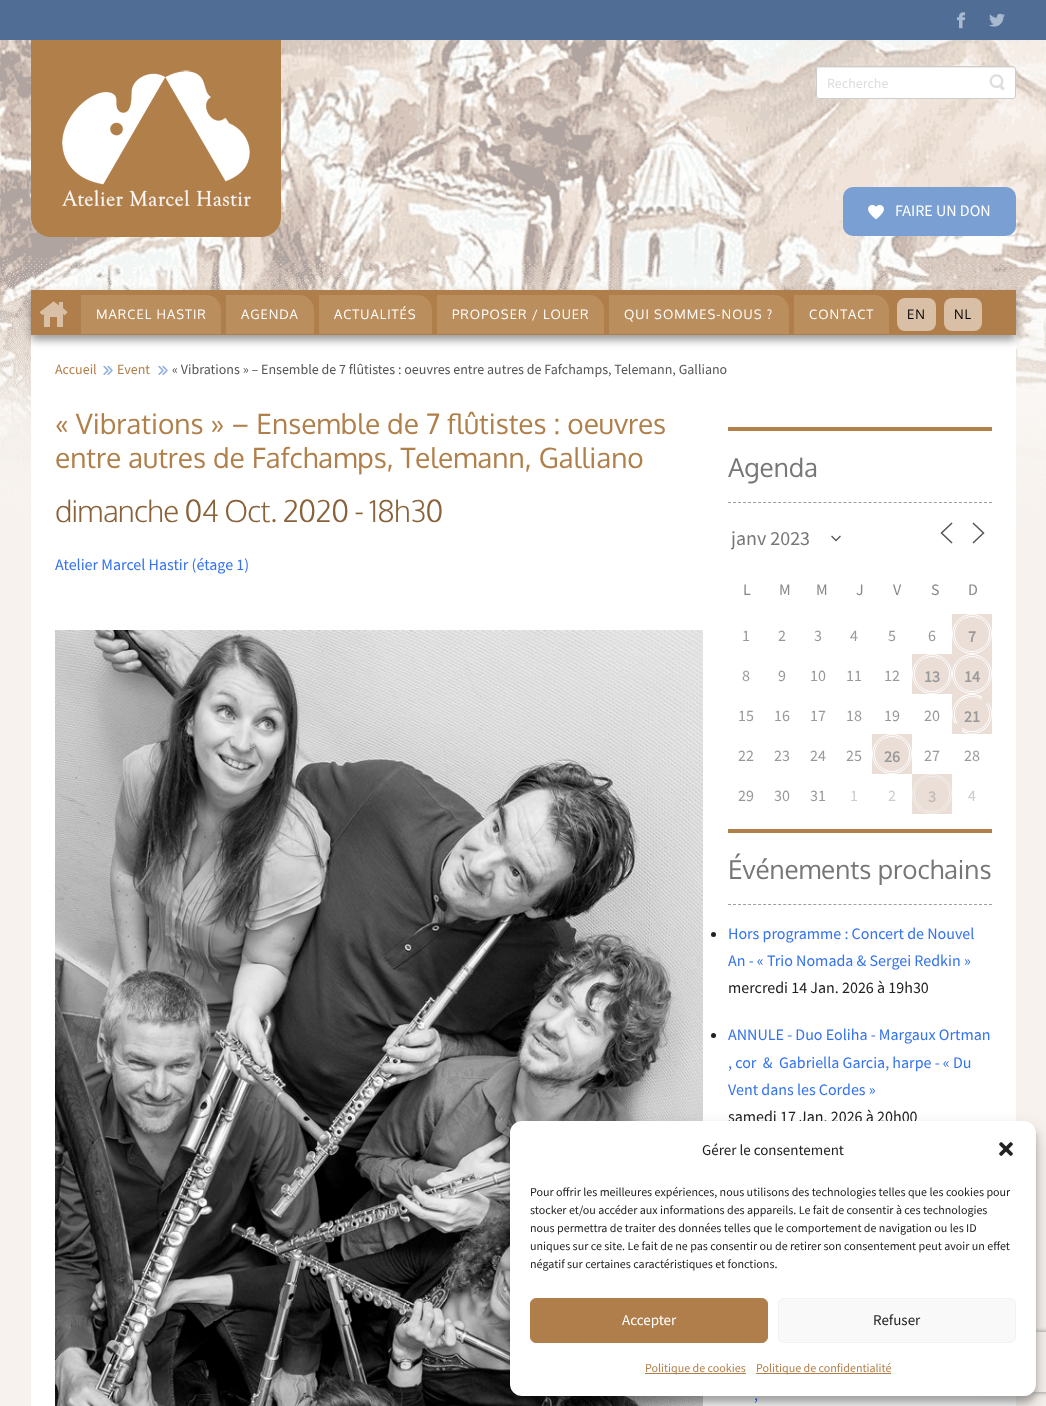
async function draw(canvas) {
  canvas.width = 1046
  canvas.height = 1406
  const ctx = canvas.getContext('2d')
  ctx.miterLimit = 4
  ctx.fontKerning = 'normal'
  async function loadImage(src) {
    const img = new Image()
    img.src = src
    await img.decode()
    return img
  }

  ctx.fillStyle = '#f7f2ed'
  ctx.fillRect(0, 0, 1046, 1406)
  ctx.drawImage(await loadImage('image0.png'), 0, 40, 1046, 487)
  ctx.fillStyle = '#506d95'
  ctx.fillRect(0, 0, 1046, 40)
  ctx.drawImage(await loadImage('image1.png'), 956, 12, 10, 17)
  ctx.drawImage(await loadImage('image2.png'), 989, 13, 16, 14)
  ctx.drawImage(await loadImage('image3.png'), 31, 40, 250, 197)
  ctx.fillStyle = '#fff'
  ctx.beginPath()
  ctx.roundRect(816, 66, 200, 33, 3)
  ctx.fill()
  ctx.fillStyle = '#ececec'
  ctx.beginPath()
  ctx.moveTo(819, 68)
  ctx.lineTo(1013, 68)
  ctx.lineTo(1015, 69)
  ctx.lineTo(1015, 70)
  ctx.bezierCurveTo(1015, 69, 1015, 67, 1013, 67)
  ctx.lineTo(819, 67)
  ctx.bezierCurveTo(817, 67, 817, 69, 817, 70)
  ctx.bezierCurveTo(817, 69, 818, 68, 819, 68)
  ctx.closePath()
  ctx.fill()
  ctx.beginPath()
  ctx.roundRect(816.5, 66.5, 199, 32, 2.5)
  ctx.strokeStyle = '#ccc'
  ctx.stroke()
  ctx.font = '14px Source Sans Pro'
  ctx.fillStyle = '#ddd'
  ctx.fillText('Recherche', 827, 88)
  ctx.drawImage(await loadImage('image4.png'), 989, 74, 16, 16)
  ctx.fillStyle = '#7a9fd3'
  ctx.beginPath()
  ctx.roundRect(843, 187, 173, 49, 10)
  ctx.fill()
  ctx.drawImage(await loadImage('image5.png'), 868, 205, 16, 15)
  ctx.font = '16px Source Sans Pro'
  ctx.fillStyle = '#fff'
  ctx.fillText('FAIRE UN DON', 895, 216)
  ctx.fillRect(31, 335, 985, 1071)
  ctx.fillStyle = '#00000066'
  ctx.filter = 'blur(4px)'
  ctx.beginPath()
  ctx.rect(31, 295, 985, 45)
  ctx.fill()
  ctx.filter = 'none'
  ctx.fillStyle = '#b07e4a'
  ctx.fillRect(31, 290, 985, 45)
  ctx.drawImage(await loadImage('image6.png'), 39, 301, 29, 26)
  ctx.fillStyle = '#bb8e5d'
  ctx.beginPath()
  ctx.roundRect(81, 295, 140, 39, [0, 15, 0, 0])
  ctx.fill()
  ctx.letterSpacing = '1px'
  ctx.font = '13px Oxygen'
  ctx.fillStyle = '#fff'
  ctx.fillText('MARCEL HASTIR', 96, 319)
  ctx.fillStyle = '#bb8e5d'
  ctx.beginPath()
  ctx.roundRect(226, 295, 88, 39, [0, 15, 0, 0])
  ctx.fill()
  ctx.fillStyle = '#fff'
  ctx.fillText('AGENDA', 241, 319)
  ctx.fillStyle = '#bb8e5d'
  ctx.beginPath()
  ctx.roundRect(319, 295, 113, 39, [0, 15, 0, 0])
  ctx.fill()
  ctx.fillStyle = '#fff'
  ctx.fillText('ACTUALITÉS', 334, 319)
  ctx.fillStyle = '#bb8e5d'
  ctx.beginPath()
  ctx.roundRect(437, 295, 167, 39, [0, 15, 0, 0])
  ctx.fill()
  ctx.fillStyle = '#fff'
  ctx.fillText('PROPOSER / LOUER', 452, 319)
  ctx.fillStyle = '#bb8e5d'
  ctx.beginPath()
  ctx.roundRect(609, 295, 180, 39, [0, 15, 0, 0])
  ctx.fill()
  ctx.fillStyle = '#fff'
  ctx.fillText('QUI SOMMES-NOUS ?', 624, 319)
  ctx.fillStyle = '#bb8e5d'
  ctx.beginPath()
  ctx.roundRect(794, 295, 95, 39, [0, 15, 0, 0])
  ctx.fill()
  ctx.fillStyle = '#fff'
  ctx.fillText('CONTACT', 809, 319)
  ctx.fillStyle = '#d8bfa5'
  ctx.beginPath()
  ctx.roundRect(897, 298, 39, 33, 8)
  ctx.fill()
  ctx.fillStyle = '#000'
  ctx.fillText('EN', 907, 319)
  ctx.fillStyle = '#d8bfa5'
  ctx.beginPath()
  ctx.roundRect(944, 298, 38, 33, 8)
  ctx.fill()
  ctx.fillStyle = '#000'
  ctx.fillText('NL', 954, 319)
  ctx.letterSpacing = '0px'
  ctx.font = '14px Source Sans Pro'
  ctx.fillStyle = '#b17f4a'
  ctx.fillText('Accueil', 55, 374)
  ctx.drawImage(await loadImage('image7.png'), 103, 365, 10, 10)
  ctx.fillText('Event', 117, 374)
  ctx.drawImage(await loadImage('image7.png'), 158, 365, 10, 10)
  ctx.fillStyle = '#555'
  ctx.fillText('« Vibrations » – Ensemble de 7 flûtistes : oeuvres entre autres de Fafchamps, Telemann, Galliano', 172, 374)
  ctx.font = '28px Oxygen'
  ctx.fillStyle = '#b17f4a'
  ctx.fillText('« Vibrations » – Ensemble de 7 flûtistes : oeuvres', 55, 434)
  ctx.fillText('entre autres de Fafchamps, Telemann, Galliano', 55, 468)
  ctx.letterSpacing = '-0.8px'
  ctx.font = '300 30px Oxygen'
  ctx.fillStyle = '#896239'
  ctx.fillText('dimanche 04 Oct. 2020 - 18h30', 55, 522)
  ctx.letterSpacing = '0px'
  ctx.font = '16px Source Sans Pro'
  ctx.fillStyle = '#3372f0'
  ctx.fillText('Atelier Marcel Hastir (étage 1)', 55, 570)
  ctx.drawImage(await loadImage('image8.png'), 55, 630, 648, 776)
  ctx.fillStyle = '#b17f4a'
  ctx.fillRect(728, 427, 264, 4)
  ctx.beginPath()
  ctx.moveTo(728, 502.5)
  ctx.lineTo(992, 502.5)
  ctx.strokeStyle = '#9e9e9e'
  ctx.setLineDash([3, 2.02])
  ctx.stroke()
  ctx.font = '26px Oxygen'
  ctx.fillStyle = '#777'
  ctx.fillText('Agenda', 728, 477)
  ctx.beginPath()
  ctx.moveTo(832, 536.5)
  ctx.lineTo(836, 540.5)
  ctx.lineTo(840, 536.5)
  ctx.strokeStyle = '#555'
  ctx.lineWidth = 1.3
  ctx.lineCap = 'square'
  ctx.setLineDash([])
  ctx.stroke()
  ctx.save()
  ctx.beginPath()
  ctx.rect(731, 525, 110, 25)
  ctx.clip()
  ctx.font = '20px Source Sans Pro'
  ctx.fillText('janv 2023', 731, 545)
  ctx.restore()
  ctx.beginPath()
  ctx.moveTo(951.5, 542.5)
  ctx.lineTo(941.5, 533)
  ctx.lineTo(951.5, 523.5)
  ctx.moveTo(973.5, 542.5)
  ctx.lineTo(983.5, 533)
  ctx.lineTo(973.5, 523.5)
  ctx.lineWidth = 1.5
  ctx.stroke()
  ctx.font = '16px Source Sans Pro'
  ctx.fillStyle = '#888'
  ctx.fillText('L', 743, 595)
  ctx.fillText('M', 779, 595)
  ctx.fillText('M', 816, 595)
  ctx.fillText('J', 856, 595)
  ctx.fillText('V', 893, 595)
  ctx.fillText('S', 931, 595)
  ctx.fillText('D', 968, 595)
  ctx.fillStyle = '#999'
  ctx.fillText('1', 742, 641)
  ctx.fillText('2', 778, 641)
  ctx.fillText('3', 814, 641)
  ctx.fillText('4', 850, 641)
  ctx.fillText('5', 888, 641)
  ctx.fillText('6', 928, 641)
  ctx.fillStyle = '#eaded7'
  ctx.fillRect(952, 614, 40, 40)
  ctx.beginPath()
  ctx.arc(972, 634, 19.5, 0, 2 * Math.PI)
  ctx.strokeStyle = '#fff'
  ctx.lineWidth = 1
  ctx.stroke()
  ctx.beginPath()
  ctx.arc(972, 634, 17.5, 0, 2 * Math.PI)
  ctx.strokeStyle = '#fefefe'
  ctx.stroke()
  ctx.font = 'bold 16px Source Sans Pro'
  ctx.fillStyle = '#999'
  ctx.fillText('7', 968, 642)
  ctx.font = '16px Source Sans Pro'
  ctx.fillText('8', 742, 681)
  ctx.fillText('9', 778, 681)
  ctx.fillText('10', 810, 681)
  ctx.fillText('11', 846, 681)
  ctx.fillText('12', 884, 681)
  ctx.fillStyle = '#eaded7'
  ctx.fillRect(912, 654, 80, 40)
  ctx.beginPath()
  ctx.arc(932, 674, 19.5, 0, 2 * Math.PI)
  ctx.strokeStyle = '#fff'
  ctx.stroke()
  ctx.beginPath()
  ctx.arc(932, 674, 17.5, 0, 2 * Math.PI)
  ctx.strokeStyle = '#fefefe'
  ctx.stroke()
  ctx.font = 'bold 16px Source Sans Pro'
  ctx.fillStyle = '#999'
  ctx.fillText('13', 924, 682)
  ctx.beginPath()
  ctx.arc(972, 674, 19.5, 0, 2 * Math.PI)
  ctx.strokeStyle = '#fff'
  ctx.stroke()
  ctx.beginPath()
  ctx.arc(972, 674, 17.5, 0, 2 * Math.PI)
  ctx.strokeStyle = '#fefefe'
  ctx.stroke()
  ctx.fillText('14', 964, 682)
  ctx.font = '16px Source Sans Pro'
  ctx.fillText('15', 738, 721)
  ctx.fillText('16', 774, 721)
  ctx.fillText('17', 810, 721)
  ctx.fillText('18', 846, 721)
  ctx.fillText('19', 884, 721)
  ctx.fillText('20', 924, 721)
  ctx.fillStyle = '#eaded7'
  ctx.fillRect(952, 694, 40, 40)
  ctx.fillStyle = '#fff'
  ctx.beginPath()
  ctx.moveTo(967.5, 733.5)
  ctx.bezierCurveTo(965.5, 733, 963.5, 732.5, 962, 731.5)
  ctx.lineTo(962, 730)
  ctx.bezierCurveTo(979, 741, 999, 720.5, 988, 703.5)
  ctx.lineTo(989, 703.5)
  ctx.bezierCurveTo(995.5, 714, 991, 728, 979.5, 732.5)
  ctx.bezierCurveTo(975.5, 734, 971.5, 733.5, 967.5, 733.5)
  ctx.closePath()
  ctx.moveTo(972, 694)
  ctx.bezierCurveTo(957, 694, 947.5, 710.5, 954.5, 723.5)
  ctx.lineTo(955.5, 723.5)
  ctx.bezierCurveTo(945.5, 706.5, 965.5, 687.5, 982, 698)
  ctx.lineTo(982, 696.5)
  ctx.bezierCurveTo(979, 695, 975.5, 694, 972, 694)
  ctx.closePath()
  ctx.fill('evenodd')
  ctx.fillStyle = '#fefefe'
  ctx.beginPath()
  ctx.moveTo(986.5, 703.5)
  ctx.bezierCurveTo(998, 719.5, 978.5, 740, 962, 729)
  ctx.lineTo(962, 727.5)
  ctx.bezierCurveTo(977.5, 739.5, 997.5, 719, 985.5, 703.5)
  ctx.closePath()
  ctx.moveTo(972, 696)
  ctx.bezierCurveTo(958, 696, 949.5, 712, 956.5, 723.5)
  ctx.lineTo(958, 723.5)
  ctx.bezierCurveTo(947.5, 708, 966.5, 689, 982, 700)
  ctx.lineTo(982, 699)
  ctx.bezierCurveTo(979, 697, 975.5, 696, 972, 696)
  ctx.closePath()
  ctx.fill('evenodd')
  ctx.font = 'bold 16px Source Sans Pro'
  ctx.fillStyle = '#999'
  ctx.fillText('21', 964, 722)
  ctx.font = '16px Source Sans Pro'
  ctx.fillText('22', 738, 761)
  ctx.fillText('23', 774, 761)
  ctx.fillText('24', 810, 761)
  ctx.fillText('25', 846, 761)
  ctx.fillStyle = '#eaded7'
  ctx.fillRect(872, 734, 40, 40)
  ctx.beginPath()
  ctx.arc(892, 754, 19.5, 0, 2 * Math.PI)
  ctx.strokeStyle = '#fff'
  ctx.stroke()
  ctx.beginPath()
  ctx.arc(892, 754, 17.5, 0, 2 * Math.PI)
  ctx.strokeStyle = '#fefefe'
  ctx.stroke()
  ctx.font = 'bold 16px Source Sans Pro'
  ctx.fillStyle = '#999'
  ctx.fillText('26', 884, 762)
  ctx.font = '16px Source Sans Pro'
  ctx.fillText('27', 924, 761)
  ctx.fillText('28', 964, 761)
  ctx.fillText('29', 738, 801)
  ctx.fillText('30', 774, 801)
  ctx.fillText('31', 810, 801)
  ctx.fillStyle = '#ccc'
  ctx.fillText('1', 850, 801)
  ctx.fillText('2', 888, 801)
  ctx.fillStyle = '#eaded7'
  ctx.fillRect(912, 774, 40, 40)
  ctx.beginPath()
  ctx.arc(932, 794, 19.5, 0, 2 * Math.PI)
  ctx.strokeStyle = '#f5efeb'
  ctx.stroke()
  ctx.beginPath()
  ctx.arc(932, 794, 17.5, 0, 2 * Math.PI)
  ctx.strokeStyle = '#f4eeeb'
  ctx.stroke()
  ctx.font = 'bold 16px Source Sans Pro'
  ctx.fillStyle = '#c2bcb8'
  ctx.fillText('3', 928, 802)
  ctx.font = '16px Source Sans Pro'
  ctx.fillStyle = '#ccc'
  ctx.fillText('4', 968, 801)
  ctx.fillStyle = '#b17f4a'
  ctx.fillRect(728, 829, 264, 4)
  ctx.beginPath()
  ctx.moveTo(728, 904.5)
  ctx.lineTo(992, 904.5)
  ctx.strokeStyle = '#9e9e9e'
  ctx.lineCap = 'butt'
  ctx.setLineDash([3, 2.02])
  ctx.stroke()
  ctx.font = '26px Oxygen'
  ctx.fillStyle = '#777'
  ctx.fillText('Événements prochains', 728, 879)
  ctx.fillStyle = '#212121'
  ctx.beginPath()
  ctx.arc(713.5, 934.5, 2.5, 0, 2 * Math.PI)
  ctx.fill()
  ctx.font = '16px Source Sans Pro'
  ctx.fillStyle = '#3372f0'
  ctx.fillText('Hors programme : Concert de Nouvel', 728, 939)
  ctx.fillText('An - « Trio Nomada & Sergei Redkin »', 728, 966)
  ctx.fillStyle = '#212121'
  ctx.fillText('mercredi 14 Jan. 2026 à 19h30', 728, 993)
  ctx.beginPath()
  ctx.arc(713.5, 1035.5, 2.5, 0, 2 * Math.PI)
  ctx.fill()
  ctx.fillStyle = '#3372f0'
  ctx.fillText('ANNULE - Duo Eoliha - Margaux Ortman', 728, 1040)
  ctx.fillText(', cor  &  Gabriella Garcia, harpe - « Du', 728, 1068)
  ctx.fillText('Vent dans les Cordes »', 728, 1095)
  ctx.fillStyle = '#212121'
  ctx.fillText('samedi 17 Jan. 2026 à 20h00', 728, 1122)
  ctx.fillStyle = '#3372f0'
  ctx.fillText(',', 754, 1400)
  ctx.fillStyle = '#0000003b'
  ctx.filter = 'blur(3px)'
  ctx.beginPath()
  ctx.roundRect(510, 1127, 526, 275, 12)
  ctx.fill()
  ctx.filter = 'none'
  ctx.fillStyle = '#00000030'
  ctx.filter = 'blur(10px)'
  ctx.beginPath()
  ctx.roundRect(510, 1131, 526, 275, 12)
  ctx.fill()
  ctx.filter = 'none'
  ctx.save()
  ctx.beginPath()
  ctx.moveTo(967, 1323)
  ctx.lineTo(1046, 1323)
  ctx.lineTo(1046, 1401)
  ctx.lineTo(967, 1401)
  ctx.closePath()
  ctx.moveTo(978, 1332)
  ctx.lineTo(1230, 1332)
  ctx.bezierCurveTo(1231, 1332, 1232, 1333, 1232, 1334)
  ctx.lineTo(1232, 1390)
  ctx.bezierCurveTo(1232, 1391, 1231, 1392, 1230, 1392)
  ctx.lineTo(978, 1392)
  ctx.bezierCurveTo(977, 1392, 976, 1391, 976, 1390)
  ctx.lineTo(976, 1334)
  ctx.bezierCurveTo(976, 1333, 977, 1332, 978, 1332)
  ctx.closePath()
  ctx.clip('evenodd')
  ctx.fillStyle = '#808080'
  ctx.filter = 'blur(2.5px)'
  ctx.beginPath()
  ctx.roundRect(976, 1332, 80, 60, 2)
  ctx.fill()
  ctx.filter = 'none'
  ctx.restore()
  ctx.fillStyle = '#fff'
  ctx.beginPath()
  ctx.roundRect(510, 1121, 526, 275, 12)
  ctx.fill()
  ctx.font = '15px Source Sans Pro'
  ctx.fillStyle = '#212121'
  ctx.fillText('Gérer le consentement', 702, 1155)
  ctx.drawImage(await loadImage('image9.png'), 999, 1142, 14, 14)
  ctx.font = '12px Source Sans Pro'
  ctx.fillText('Pour offrir les meilleures expériences, nous utilisons des technologies telles que les cookies pour', 530, 1196)
  ctx.fillText('stocker et/ou accéder aux informations des appareils. Le fait de consentir à ces technologies', 530, 1214)
  ctx.fillText('nous permettra de traiter des données telles que le comportement de navigation ou les ID', 530, 1232)
  ctx.fillText('uniques sur ce site. Le fait de ne pas consentir ou de retirer son consentement peut avoir un effet', 530, 1250)
  ctx.fillText('négatif sur certaines caractéristiques et fonctions.', 530, 1268)
  ctx.fillStyle = '#b07e4a'
  ctx.beginPath()
  ctx.roundRect(530.5, 1298.5, 237, 44, 5.5)
  ctx.fill()
  ctx.strokeStyle = '#b07e4a'
  ctx.setLineDash([])
  ctx.stroke()
  ctx.font = '15px Source Sans Pro'
  ctx.fillStyle = '#fff'
  ctx.fillText('Accepter', 622, 1325)
  ctx.fillStyle = '#f9f9f9'
  ctx.beginPath()
  ctx.roundRect(778.5, 1298.5, 237, 44, 5.5)
  ctx.fill()
  ctx.strokeStyle = '#f2f2f2'
  ctx.stroke()
  ctx.fillStyle = '#212121'
  ctx.fillText('Refuser', 873, 1325)
  ctx.fillStyle = '#b07e4a'
  ctx.fillRect(645, 1373, 101, 1)
  ctx.font = '12px Source Sans Pro'
  ctx.fillStyle = '#b17f4a'
  ctx.fillText('Politique de cookies', 645, 1372)
  ctx.fillStyle = '#b07e4a'
  ctx.fillRect(756, 1373, 135, 1)
  ctx.fillStyle = '#b17f4a'
  ctx.fillText('Politique de confidentialité', 756, 1372)
}

draw(document.querySelector('canvas'))
